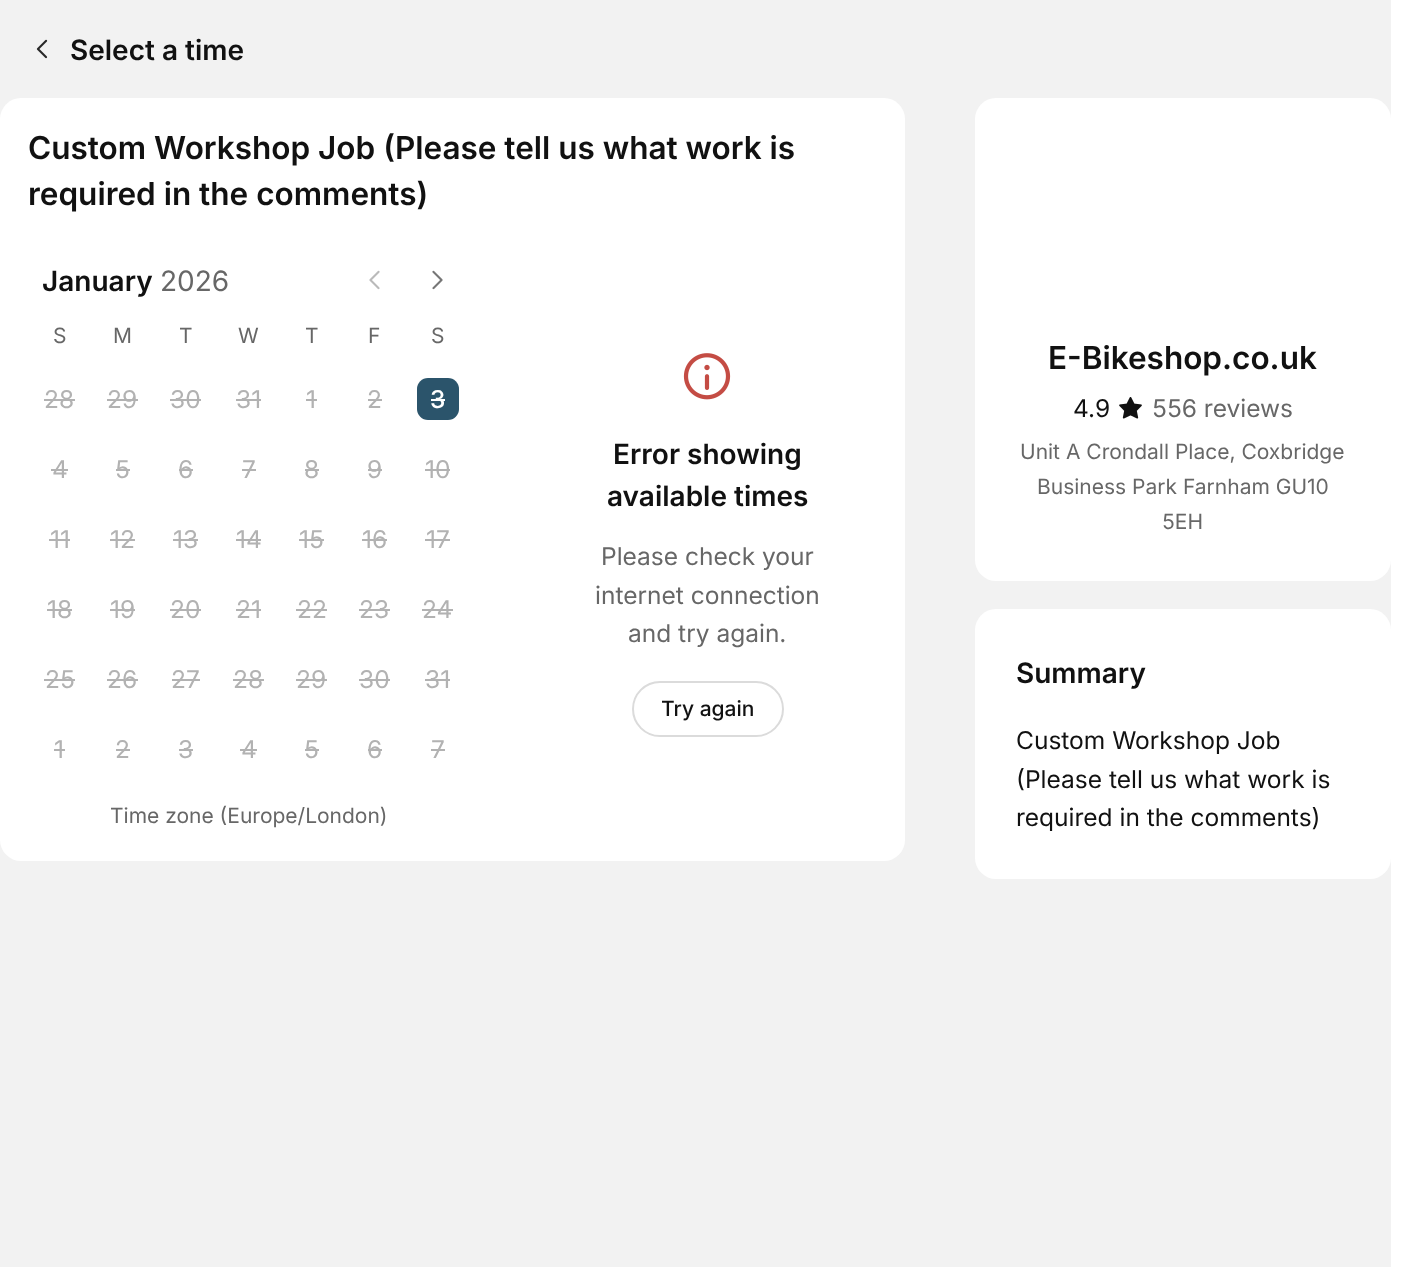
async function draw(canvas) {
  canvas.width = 1416
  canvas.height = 1267
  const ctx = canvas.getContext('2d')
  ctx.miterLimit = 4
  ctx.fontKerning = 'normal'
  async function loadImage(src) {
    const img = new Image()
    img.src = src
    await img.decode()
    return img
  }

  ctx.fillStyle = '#fff'
  ctx.fillRect(0, 0, 1416, 1267)
  ctx.fillStyle = '#f2f2f2'
  ctx.fillRect(0, 0, 1391, 1267)
  ctx.drawImage(await loadImage('image0.png'), 36, 39, 12, 20)
  ctx.font = '600 28px Inter'
  ctx.fillStyle = '#111'
  ctx.fillText('Select a time', 70, 60)
  ctx.fillStyle = '#fff'
  ctx.beginPath()
  ctx.roundRect(0, 98, 905, 763, 21)
  ctx.fill()
  ctx.font = '600 31.5px Inter'
  ctx.fillStyle = '#111'
  ctx.fillText('Custom Workshop Job (Please tell us what work is', 28, 159)
  ctx.fillText('required in the comments)', 28, 205)
  ctx.font = '600 28px Inter'
  ctx.fillText('January', 42, 291)
  ctx.font = '28px Inter'
  ctx.fillStyle = '#676767'
  ctx.fillText('2026', 160, 291)
  ctx.drawImage(await loadImage('image1.png'), 369, 270, 11, 20)
  ctx.drawImage(await loadImage('image2.png'), 432, 270, 11, 20)
  ctx.font = '21px Inter'
  ctx.fillText('S', 53, 343)
  ctx.fillText('M', 113, 343)
  ctx.fillText('T', 179, 343)
  ctx.fillText('W', 238, 343)
  ctx.fillText('T', 305, 343)
  ctx.fillText('F', 368, 343)
  ctx.fillText('S', 431, 343)
  ctx.font = '24.5px Inter'
  ctx.fillStyle = '#b2b2b2'
  ctx.fillText('28', 44, 408)
  ctx.fillRect(44, 399, 31, 2)
  ctx.fillText('29', 107, 408)
  ctx.fillRect(107, 399, 31, 2)
  ctx.fillText('30', 170, 408)
  ctx.fillRect(170, 399, 31, 2)
  ctx.fillText('31', 236, 408)
  ctx.fillRect(236, 399, 25, 2)
  ctx.fillText('1', 306, 408)
  ctx.fillRect(306, 399, 11, 2)
  ctx.fillText('2', 367, 408)
  ctx.fillRect(368, 399, 14, 2)
  ctx.fillStyle = '#2b546b'
  ctx.beginPath()
  ctx.roundRect(417, 378, 42, 42, 11)
  ctx.fill()
  ctx.font = '500 24.5px Inter'
  ctx.fillStyle = '#fff'
  ctx.fillText('3', 430, 408)
  ctx.fillRect(431, 399, 14, 2)
  ctx.font = '24.5px Inter'
  ctx.fillStyle = '#b2b2b2'
  ctx.fillText('4', 52, 478)
  ctx.fillRect(51, 469, 17, 2)
  ctx.fillText('5', 115, 478)
  ctx.fillRect(116, 469, 14, 2)
  ctx.fillText('6', 178, 478)
  ctx.fillRect(179, 469, 14, 2)
  ctx.fillText('7', 242, 478)
  ctx.fillRect(242, 469, 14, 2)
  ctx.fillText('8', 304, 478)
  ctx.fillRect(305, 469, 14, 2)
  ctx.fillText('9', 367, 478)
  ctx.fillRect(368, 469, 14, 2)
  ctx.fillText('10', 425, 478)
  ctx.fillRect(425, 469, 25, 2)
  ctx.fillText('11', 50, 548)
  ctx.fillRect(49, 539, 21, 2)
  ctx.fillText('12', 110, 548)
  ctx.fillRect(110, 539, 25, 2)
  ctx.fillText('13', 173, 548)
  ctx.fillRect(173, 539, 25, 2)
  ctx.fillText('14', 236, 548)
  ctx.fillRect(236, 539, 25, 2)
  ctx.fillText('15', 299, 548)
  ctx.fillRect(299, 539, 25, 2)
  ctx.fillText('16', 362, 548)
  ctx.fillRect(362, 539, 25, 2)
  ctx.fillText('17', 426, 548)
  ctx.fillRect(425, 539, 25, 2)
  ctx.fillText('18', 47, 618)
  ctx.fillRect(47, 609, 25, 2)
  ctx.fillText('19', 110, 618)
  ctx.fillRect(110, 609, 25, 2)
  ctx.fillText('20', 170, 618)
  ctx.fillRect(170, 609, 31, 2)
  ctx.fillText('21', 236, 618)
  ctx.fillRect(236, 609, 25, 2)
  ctx.fillText('22', 297, 618)
  ctx.fillRect(296, 609, 31, 2)
  ctx.fillText('23', 359, 618)
  ctx.fillRect(359, 609, 31, 2)
  ctx.fillText('24', 422, 618)
  ctx.fillRect(422, 609, 31, 2)
  ctx.fillText('25', 45, 688)
  ctx.fillRect(44, 679, 31, 2)
  ctx.fillText('26', 107, 688)
  ctx.fillRect(107, 679, 31, 2)
  ctx.fillText('27', 171, 688)
  ctx.fillRect(172, 679, 28, 2)
  ctx.fillText('28', 233, 688)
  ctx.fillRect(233, 679, 31, 2)
  ctx.fillText('29', 296, 688)
  ctx.fillRect(296, 679, 31, 2)
  ctx.fillText('30', 359, 688)
  ctx.fillRect(359, 679, 31, 2)
  ctx.fillText('31', 425, 688)
  ctx.fillRect(425, 679, 25, 2)
  ctx.fillText('1', 54, 758)
  ctx.fillRect(54, 749, 11, 2)
  ctx.fillText('2', 115, 758)
  ctx.fillRect(116, 749, 14, 2)
  ctx.fillText('3', 178, 758)
  ctx.fillRect(179, 749, 14, 2)
  ctx.fillText('4', 241, 758)
  ctx.fillRect(240, 749, 17, 2)
  ctx.fillText('5', 304, 758)
  ctx.fillRect(305, 749, 14, 2)
  ctx.fillText('6', 367, 758)
  ctx.fillRect(368, 749, 14, 2)
  ctx.fillText('7', 431, 758)
  ctx.fillRect(431, 749, 14, 2)
  ctx.font = '21px Inter'
  ctx.fillStyle = '#676767'
  ctx.fillText('Time zone (Europe/London)', 110, 823)
  ctx.drawImage(await loadImage('image3.png'), 683, 353, 48, 47)
  ctx.font = '600 28px Inter'
  ctx.fillStyle = '#111'
  ctx.fillText('Error showing', 613, 464)
  ctx.fillText('available times', 607, 506)
  ctx.font = '24.5px Inter'
  ctx.fillStyle = '#676767'
  ctx.fillText('Please check your', 601, 565)
  ctx.fillText('internet connection', 595, 604)
  ctx.fillText('and try again.', 628, 642)
  ctx.beginPath()
  ctx.roundRect(633, 682, 150, 54, 27)
  ctx.strokeStyle = '#dbdbdb'
  ctx.lineWidth = 2
  ctx.stroke()
  ctx.save()
  ctx.beginPath()
  ctx.rect(662, 684, 92, 49)
  ctx.clip()
  ctx.font = '500 21px Inter'
  ctx.fillStyle = '#111'
  ctx.fillText('Try again', 661, 716)
  ctx.restore()
  ctx.fillStyle = '#fff'
  ctx.beginPath()
  ctx.roundRect(975, 98, 416, 483, 21)
  ctx.fill()
  ctx.font = '600 31.5px Inter'
  ctx.fillStyle = '#111'
  ctx.fillText('E-Bikeshop.co.uk', 1048, 369)
  ctx.font = '24.5px Inter'
  ctx.fillText('4.9', 1073, 417)
  ctx.drawImage(await loadImage('image4.png'), 1119, 397, 23, 22)
  ctx.fillStyle = '#676767'
  ctx.fillText('556 reviews', 1152, 417)
  ctx.font = '21px Inter'
  ctx.fillText('Unit A Crondall Place, Coxbridge', 1020, 459)
  ctx.fillText('Business Park Farnham GU10', 1037, 494)
  ctx.fillText('5EH', 1162, 529)
  ctx.fillStyle = '#fff'
  ctx.beginPath()
  ctx.roundRect(975, 609, 416, 270, 21)
  ctx.fill()
  ctx.font = '600 28px Inter'
  ctx.fillStyle = '#111'
  ctx.fillText('Summary', 1016, 683)
  ctx.font = '24.5px Inter'
  ctx.fillText('Custom Workshop Job', 1016, 749)
  ctx.fillText('(Please tell us what work is', 1016, 788)
  ctx.fillText('required in the comments)', 1016, 826)
}

draw(document.querySelector('canvas'))
